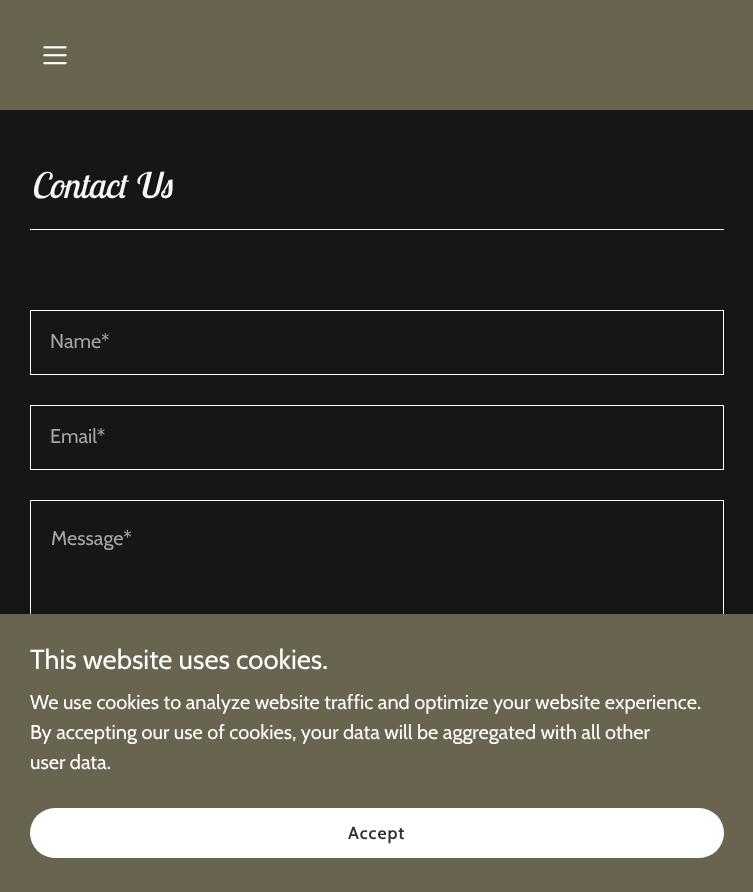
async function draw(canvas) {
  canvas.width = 753
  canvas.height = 892
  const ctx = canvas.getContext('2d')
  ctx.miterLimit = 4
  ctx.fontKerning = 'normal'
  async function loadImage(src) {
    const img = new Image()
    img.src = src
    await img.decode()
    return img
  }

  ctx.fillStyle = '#68644f'
  ctx.fillRect(0, 0, 753, 892)
  ctx.drawImage(await loadImage('image0.png'), 43, 46, 24, 19)
  ctx.fillStyle = '#161616'
  ctx.fillRect(0, 110, 753, 504)
  ctx.font = 'italic 35px Lobster Two'
  ctx.fillStyle = '#f7f7f7'
  ctx.fillText('Contact Us', 30, 198)
  ctx.fillStyle = '#fff'
  ctx.fillRect(30, 229, 694, 1)
  ctx.strokeStyle = '#fff'
  ctx.strokeRect(30.5, 310.5, 693, 64)
  ctx.font = '20px Cabin'
  ctx.fillStyle = '#a4a4a4'
  ctx.fillText('Name*', 50, 348)
  ctx.strokeRect(30.5, 405.5, 693, 64)
  ctx.fillText('Email*', 50, 443)
  ctx.strokeRect(30.5, 500.5, 693, 182)
  ctx.fillText('Message*', 51, 545)
  ctx.fillStyle = '#0000004d'
  ctx.filter = 'blur(4px)'
  ctx.beginPath()
  ctx.rect(0, 616, 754, 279)
  ctx.fill()
  ctx.filter = 'none'
  ctx.fillStyle = '#68644f'
  ctx.fillRect(0, 614, 753, 278)
  ctx.font = '27.5px Cabin'
  ctx.fillStyle = '#fff'
  ctx.fillText('This website uses cookies.', 30, 669)
  ctx.font = '20px Cabin'
  ctx.fillText('We use cookies to analyze website traffic and optimize your website experience.', 30, 709)
  ctx.fillText('By accepting our use of cookies, your data will be aggregated with all other', 30, 739)
  ctx.fillText('user data.', 30, 769)
  ctx.beginPath()
  ctx.roundRect(30, 808, 694, 50, 25)
  ctx.fill()
  ctx.letterSpacing = '1px'
  ctx.font = '600 17.5px Cabin'
  ctx.fillStyle = '#303030'
  ctx.fillText('Accept', 348, 839)
}

draw(document.querySelector('canvas'))
